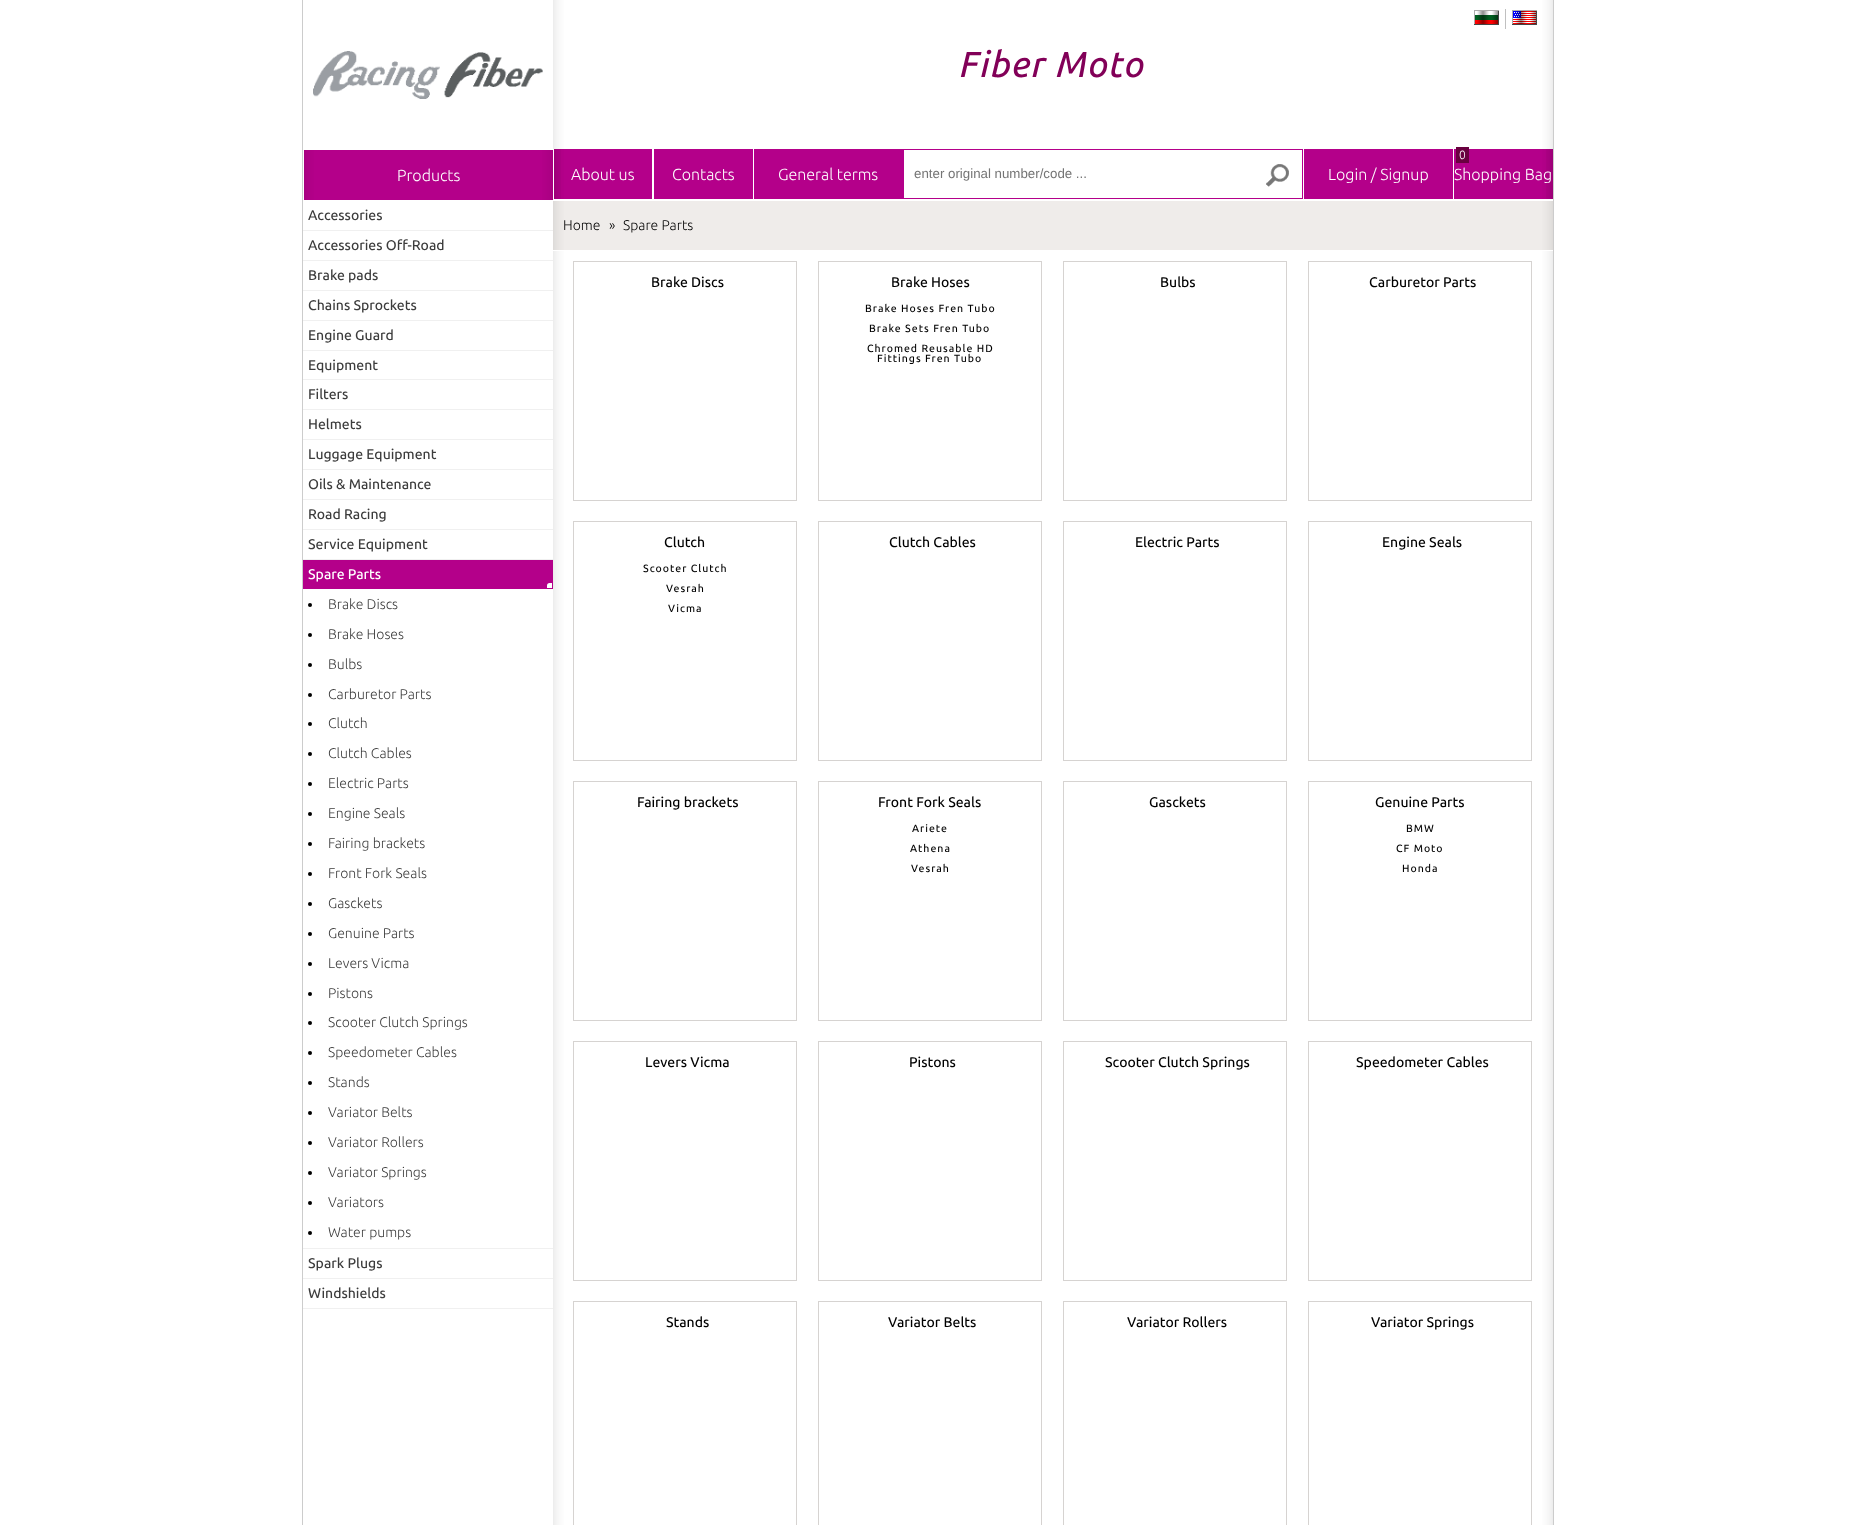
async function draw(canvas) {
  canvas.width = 1856
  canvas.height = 1525
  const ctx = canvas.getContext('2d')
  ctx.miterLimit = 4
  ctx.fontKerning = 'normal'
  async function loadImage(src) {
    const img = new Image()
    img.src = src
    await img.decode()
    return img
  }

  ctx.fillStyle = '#fff'
  ctx.fillRect(0, 0, 1856, 1525)
  ctx.fillStyle = '#ccc'
  ctx.fillRect(1553, 0, 1, 1525)
  ctx.fillRect(302, 0, 1, 1525)
  ctx.drawImage(await loadImage('image0.png'), 313, 51, 230, 48)
  ctx.fillStyle = '#b4008a'
  ctx.fillRect(304, 150, 249, 50)
  ctx.drawImage(await loadImage('image1.png'), 304, 150, 249, 50)
  ctx.font = '300 16px Ubuntu'
  ctx.fillStyle = '#fff'
  ctx.fillText('Products', 397, 181)
  ctx.drawImage(await loadImage('image2.png'), 553, 0, 1000, 149)
  ctx.drawImage(await loadImage('image3.png'), 1474, 10, 25, 15)
  ctx.fillStyle = '#c0c0c0'
  ctx.fillRect(1505, 9, 1, 20)
  ctx.drawImage(await loadImage('image4.png'), 1512, 10, 25, 15)
  ctx.letterSpacing = '1px'
  ctx.font = 'italic 500 36px Ubuntu'
  ctx.fillStyle = '#820058'
  ctx.fillText('Fiber Moto', 960, 77)
  ctx.fillStyle = '#b4008a'
  ctx.fillRect(554, 149, 999, 50)
  ctx.drawImage(await loadImage('image5.png'), 554, 149, 999, 50)
  ctx.drawImage(await loadImage('image6.png'), 554, 149, 7, 50)
  ctx.fillStyle = '#fff'
  ctx.fillRect(652, 149, 2, 50)
  ctx.letterSpacing = '0px'
  ctx.font = '300 16px Ubuntu'
  ctx.fillText('About us', 571, 180)
  ctx.fillText('Contacts', 672, 180)
  ctx.fillRect(753, 149, 1, 50)
  ctx.fillText('General terms', 778, 180)
  ctx.fillRect(904, 150, 398, 48)
  ctx.font = '13.3px Liberation Sans'
  ctx.fillStyle = '#757575'
  ctx.fillText('enter original number/code ...', 914, 178)
  ctx.drawImage(await loadImage('image7.png'), 1266, 164, 23, 23)
  ctx.fillStyle = '#fff'
  ctx.fillRect(1303, 149, 1, 50)
  ctx.font = '300 16px Ubuntu'
  ctx.fillText('Login / Signup', 1328, 180)
  ctx.drawImage(await loadImage('image8.png'), 1546, 149, 7, 50)
  ctx.fillRect(1453, 149, 1, 50)
  ctx.fillStyle = '#69003f'
  ctx.fillRect(1456, 147, 13, 16)
  ctx.font = '300 12px Ubuntu'
  ctx.fillStyle = '#fff'
  ctx.fillText('0', 1459, 159)
  ctx.font = '300 16px Ubuntu'
  ctx.fillText('Shopping Bag', 1454, 180)
  ctx.fillStyle = '#f0f0f0'
  ctx.fillRect(303, 230, 250, 1)
  ctx.font = '500 14px Ubuntu'
  ctx.fillStyle = '#3c3c3c'
  ctx.fillText('Accessories', 308, 220)
  ctx.fillStyle = '#f0f0f0'
  ctx.fillRect(303, 260, 250, 1)
  ctx.fillStyle = '#3c3c3c'
  ctx.fillText('Accessories Off-Road', 308, 250)
  ctx.fillStyle = '#f0f0f0'
  ctx.fillRect(303, 290, 250, 1)
  ctx.fillStyle = '#3c3c3c'
  ctx.fillText('Brake pads', 308, 280)
  ctx.fillStyle = '#f0f0f0'
  ctx.fillRect(303, 320, 250, 1)
  ctx.fillStyle = '#3c3c3c'
  ctx.fillText('Chains Sprockets', 308, 310)
  ctx.fillStyle = '#f0f0f0'
  ctx.fillRect(303, 350, 250, 1)
  ctx.fillStyle = '#3c3c3c'
  ctx.fillText('Engine Guard', 308, 340)
  ctx.fillStyle = '#f0f0f0'
  ctx.fillRect(303, 379, 250, 1)
  ctx.fillStyle = '#3c3c3c'
  ctx.fillText('Equipment', 308, 370)
  ctx.fillStyle = '#f0f0f0'
  ctx.fillRect(303, 409, 250, 1)
  ctx.fillStyle = '#3c3c3c'
  ctx.fillText('Filters', 308, 399)
  ctx.fillStyle = '#f0f0f0'
  ctx.fillRect(303, 439, 250, 1)
  ctx.fillStyle = '#3c3c3c'
  ctx.fillText('Helmets', 308, 429)
  ctx.fillStyle = '#f0f0f0'
  ctx.fillRect(303, 469, 250, 1)
  ctx.fillStyle = '#3c3c3c'
  ctx.fillText('Luggage Equipment', 308, 459)
  ctx.fillStyle = '#f0f0f0'
  ctx.fillRect(303, 499, 250, 1)
  ctx.fillStyle = '#3c3c3c'
  ctx.fillText('Oils & Maintenance', 308, 489)
  ctx.fillStyle = '#f0f0f0'
  ctx.fillRect(303, 529, 250, 1)
  ctx.fillStyle = '#3c3c3c'
  ctx.fillText('Road Racing', 308, 519)
  ctx.fillStyle = '#f0f0f0'
  ctx.fillRect(303, 559, 250, 1)
  ctx.fillStyle = '#3c3c3c'
  ctx.fillText('Service Equipment', 308, 549)
  ctx.fillStyle = '#f0f0f0'
  ctx.fillRect(303, 1248, 250, 1)
  ctx.fillStyle = '#b4008a'
  ctx.fillRect(303, 560, 250, 29)
  ctx.fillStyle = '#fff'
  ctx.fillText('Spare Parts', 308, 579)
  ctx.beginPath()
  ctx.roundRect(547, 583, 5, 5, [2.5, 0, 0, 0])
  ctx.fill()
  ctx.fillStyle = '#000'
  ctx.beginPath()
  ctx.arc(310, 605, 2, 0, 2 * Math.PI)
  ctx.fill()
  ctx.font = '300 14px Ubuntu'
  ctx.fillStyle = '#3c3c3c'
  ctx.fillText('Brake Discs', 328, 609)
  ctx.fillStyle = '#000'
  ctx.beginPath()
  ctx.arc(310, 635, 2, 0, 2 * Math.PI)
  ctx.fill()
  ctx.fillStyle = '#3c3c3c'
  ctx.fillText('Brake Hoses', 328, 639)
  ctx.fillStyle = '#000'
  ctx.beginPath()
  ctx.arc(310, 665, 2, 0, 2 * Math.PI)
  ctx.fill()
  ctx.fillStyle = '#3c3c3c'
  ctx.fillText('Bulbs', 328, 669)
  ctx.fillStyle = '#000'
  ctx.beginPath()
  ctx.arc(310, 695, 2, 0, 2 * Math.PI)
  ctx.fill()
  ctx.fillStyle = '#3c3c3c'
  ctx.fillText('Carburetor Parts', 328, 699)
  ctx.fillStyle = '#000'
  ctx.beginPath()
  ctx.arc(310, 724, 2, 0, 2 * Math.PI)
  ctx.fill()
  ctx.fillStyle = '#3c3c3c'
  ctx.fillText('Clutch', 328, 728)
  ctx.fillStyle = '#000'
  ctx.beginPath()
  ctx.arc(310, 754, 2, 0, 2 * Math.PI)
  ctx.fill()
  ctx.fillStyle = '#3c3c3c'
  ctx.fillText('Clutch Cables', 328, 758)
  ctx.fillStyle = '#000'
  ctx.beginPath()
  ctx.arc(310, 784, 2, 0, 2 * Math.PI)
  ctx.fill()
  ctx.fillStyle = '#3c3c3c'
  ctx.fillText('Electric Parts', 328, 788)
  ctx.fillStyle = '#000'
  ctx.beginPath()
  ctx.arc(310, 814, 2, 0, 2 * Math.PI)
  ctx.fill()
  ctx.fillStyle = '#3c3c3c'
  ctx.fillText('Engine Seals', 328, 818)
  ctx.fillStyle = '#000'
  ctx.beginPath()
  ctx.arc(310, 844, 2, 0, 2 * Math.PI)
  ctx.fill()
  ctx.fillStyle = '#3c3c3c'
  ctx.fillText('Fairing brackets', 328, 848)
  ctx.fillStyle = '#000'
  ctx.beginPath()
  ctx.arc(310, 874, 2, 0, 2 * Math.PI)
  ctx.fill()
  ctx.fillStyle = '#3c3c3c'
  ctx.fillText('Front Fork Seals', 328, 878)
  ctx.fillStyle = '#000'
  ctx.beginPath()
  ctx.arc(310, 904, 2, 0, 2 * Math.PI)
  ctx.fill()
  ctx.fillStyle = '#3c3c3c'
  ctx.fillText('Gasckets', 328, 908)
  ctx.fillStyle = '#000'
  ctx.beginPath()
  ctx.arc(310, 934, 2, 0, 2 * Math.PI)
  ctx.fill()
  ctx.fillStyle = '#3c3c3c'
  ctx.fillText('Genuine Parts', 328, 938)
  ctx.fillStyle = '#000'
  ctx.beginPath()
  ctx.arc(310, 964, 2, 0, 2 * Math.PI)
  ctx.fill()
  ctx.fillStyle = '#3c3c3c'
  ctx.fillText('Levers Vicma', 328, 968)
  ctx.fillStyle = '#000'
  ctx.beginPath()
  ctx.arc(310, 994, 2, 0, 2 * Math.PI)
  ctx.fill()
  ctx.fillStyle = '#3c3c3c'
  ctx.fillText('Pistons', 328, 998)
  ctx.fillStyle = '#000'
  ctx.beginPath()
  ctx.arc(310, 1023, 2, 0, 2 * Math.PI)
  ctx.fill()
  ctx.fillStyle = '#3c3c3c'
  ctx.fillText('Scooter Clutch Springs', 328, 1027)
  ctx.fillStyle = '#000'
  ctx.beginPath()
  ctx.arc(310, 1053, 2, 0, 2 * Math.PI)
  ctx.fill()
  ctx.fillStyle = '#3c3c3c'
  ctx.fillText('Speedometer Cables', 328, 1057)
  ctx.fillStyle = '#000'
  ctx.beginPath()
  ctx.arc(310, 1083, 2, 0, 2 * Math.PI)
  ctx.fill()
  ctx.fillStyle = '#3c3c3c'
  ctx.fillText('Stands', 328, 1087)
  ctx.fillStyle = '#000'
  ctx.beginPath()
  ctx.arc(310, 1113, 2, 0, 2 * Math.PI)
  ctx.fill()
  ctx.fillStyle = '#3c3c3c'
  ctx.fillText('Variator Belts', 328, 1117)
  ctx.fillStyle = '#000'
  ctx.beginPath()
  ctx.arc(310, 1143, 2, 0, 2 * Math.PI)
  ctx.fill()
  ctx.fillStyle = '#3c3c3c'
  ctx.fillText('Variator Rollers', 328, 1147)
  ctx.fillStyle = '#000'
  ctx.beginPath()
  ctx.arc(310, 1173, 2, 0, 2 * Math.PI)
  ctx.fill()
  ctx.fillStyle = '#3c3c3c'
  ctx.fillText('Variator Springs', 328, 1177)
  ctx.fillStyle = '#000'
  ctx.beginPath()
  ctx.arc(310, 1203, 2, 0, 2 * Math.PI)
  ctx.fill()
  ctx.fillStyle = '#3c3c3c'
  ctx.fillText('Variators', 328, 1207)
  ctx.fillStyle = '#000'
  ctx.beginPath()
  ctx.arc(310, 1233, 2, 0, 2 * Math.PI)
  ctx.fill()
  ctx.fillStyle = '#3c3c3c'
  ctx.fillText('Water pumps', 328, 1237)
  ctx.fillStyle = '#f0f0f0'
  ctx.fillRect(303, 1278, 250, 1)
  ctx.font = '500 14px Ubuntu'
  ctx.fillStyle = '#3c3c3c'
  ctx.fillText('Spark Plugs', 308, 1268)
  ctx.fillStyle = '#f0f0f0'
  ctx.fillRect(303, 1308, 250, 1)
  ctx.fillStyle = '#3c3c3c'
  ctx.fillText('Windshields', 308, 1298)
  ctx.drawImage(await loadImage('image9.png'), 553, 251, 1000, 1274)
  ctx.fillStyle = '#efecea'
  ctx.fillRect(553, 201, 1000, 49)
  ctx.drawImage(await loadImage('image10.png'), 553, 201, 1000, 49)
  ctx.font = '300 14px Ubuntu'
  ctx.fillStyle = '#000'
  ctx.fillText('Home', 563, 230)
  ctx.fillText('»', 609, 230)
  ctx.fillText('Spare Parts', 623, 230)
  ctx.strokeStyle = '#d6d3d1'
  ctx.strokeRect(573.5, 261.5, 223, 239)
  ctx.font = '500 14px Ubuntu'
  ctx.fillText('Brake Discs', 651, 287)
  ctx.strokeRect(818.5, 261.5, 223, 239)
  ctx.fillText('Brake Hoses', 891, 287)
  ctx.letterSpacing = '1px'
  ctx.font = '500 10.5px Ubuntu'
  ctx.fillText('Brake Hoses Fren Tubo', 865, 312)
  ctx.fillText('Brake Sets Fren Tubo', 869, 332)
  ctx.fillText('Chromed Reusable HD', 867, 352)
  ctx.fillText('Fittings Fren Tubo', 877, 362)
  ctx.strokeRect(1063.5, 261.5, 223, 239)
  ctx.letterSpacing = '0px'
  ctx.font = '500 14px Ubuntu'
  ctx.fillText('Bulbs', 1160, 287)
  ctx.strokeRect(1308.5, 261.5, 223, 239)
  ctx.fillText('Carburetor Parts', 1369, 287)
  ctx.strokeRect(573.5, 521.5, 223, 239)
  ctx.fillText('Clutch', 664, 547)
  ctx.letterSpacing = '1px'
  ctx.font = '500 10.5px Ubuntu'
  ctx.fillText('Scooter Clutch', 643, 572)
  ctx.fillText('Vesrah', 666, 592)
  ctx.fillText('Vicma', 668, 612)
  ctx.strokeRect(818.5, 521.5, 223, 239)
  ctx.letterSpacing = '0px'
  ctx.font = '500 14px Ubuntu'
  ctx.fillText('Clutch Cables', 889, 547)
  ctx.strokeRect(1063.5, 521.5, 223, 239)
  ctx.fillText('Electric Parts', 1135, 547)
  ctx.strokeRect(1308.5, 521.5, 223, 239)
  ctx.fillText('Engine Seals', 1382, 547)
  ctx.strokeRect(573.5, 781.5, 223, 239)
  ctx.fillText('Fairing brackets', 637, 807)
  ctx.strokeRect(818.5, 781.5, 223, 239)
  ctx.fillText('Front Fork Seals', 878, 807)
  ctx.letterSpacing = '1px'
  ctx.font = '500 10.5px Ubuntu'
  ctx.fillText('Ariete', 912, 832)
  ctx.fillText('Athena', 910, 852)
  ctx.fillText('Vesrah', 911, 872)
  ctx.strokeRect(1063.5, 781.5, 223, 239)
  ctx.letterSpacing = '0px'
  ctx.font = '500 14px Ubuntu'
  ctx.fillText('Gasckets', 1149, 807)
  ctx.strokeRect(1308.5, 781.5, 223, 239)
  ctx.fillText('Genuine Parts', 1375, 807)
  ctx.letterSpacing = '1px'
  ctx.font = '500 10.5px Ubuntu'
  ctx.fillText('BMW', 1406, 832)
  ctx.fillText('CF Moto', 1396, 852)
  ctx.fillText('Honda', 1402, 872)
  ctx.strokeRect(573.5, 1041.5, 223, 239)
  ctx.letterSpacing = '0px'
  ctx.font = '500 14px Ubuntu'
  ctx.fillText('Levers Vicma', 645, 1067)
  ctx.strokeRect(818.5, 1041.5, 223, 239)
  ctx.fillText('Pistons', 909, 1067)
  ctx.strokeRect(1063.5, 1041.5, 223, 239)
  ctx.fillText('Scooter Clutch Springs', 1105, 1067)
  ctx.strokeRect(1308.5, 1041.5, 223, 239)
  ctx.fillText('Speedometer Cables', 1356, 1067)
  ctx.strokeRect(573.5, 1301.5, 223, 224)
  ctx.fillText('Stands', 666, 1327)
  ctx.strokeRect(818.5, 1301.5, 223, 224)
  ctx.fillText('Variator Belts', 888, 1327)
  ctx.strokeRect(1063.5, 1301.5, 223, 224)
  ctx.fillText('Variator Rollers', 1127, 1327)
  ctx.strokeRect(1308.5, 1301.5, 223, 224)
  ctx.fillText('Variator Springs', 1371, 1327)
}

draw(document.querySelector('canvas'))
